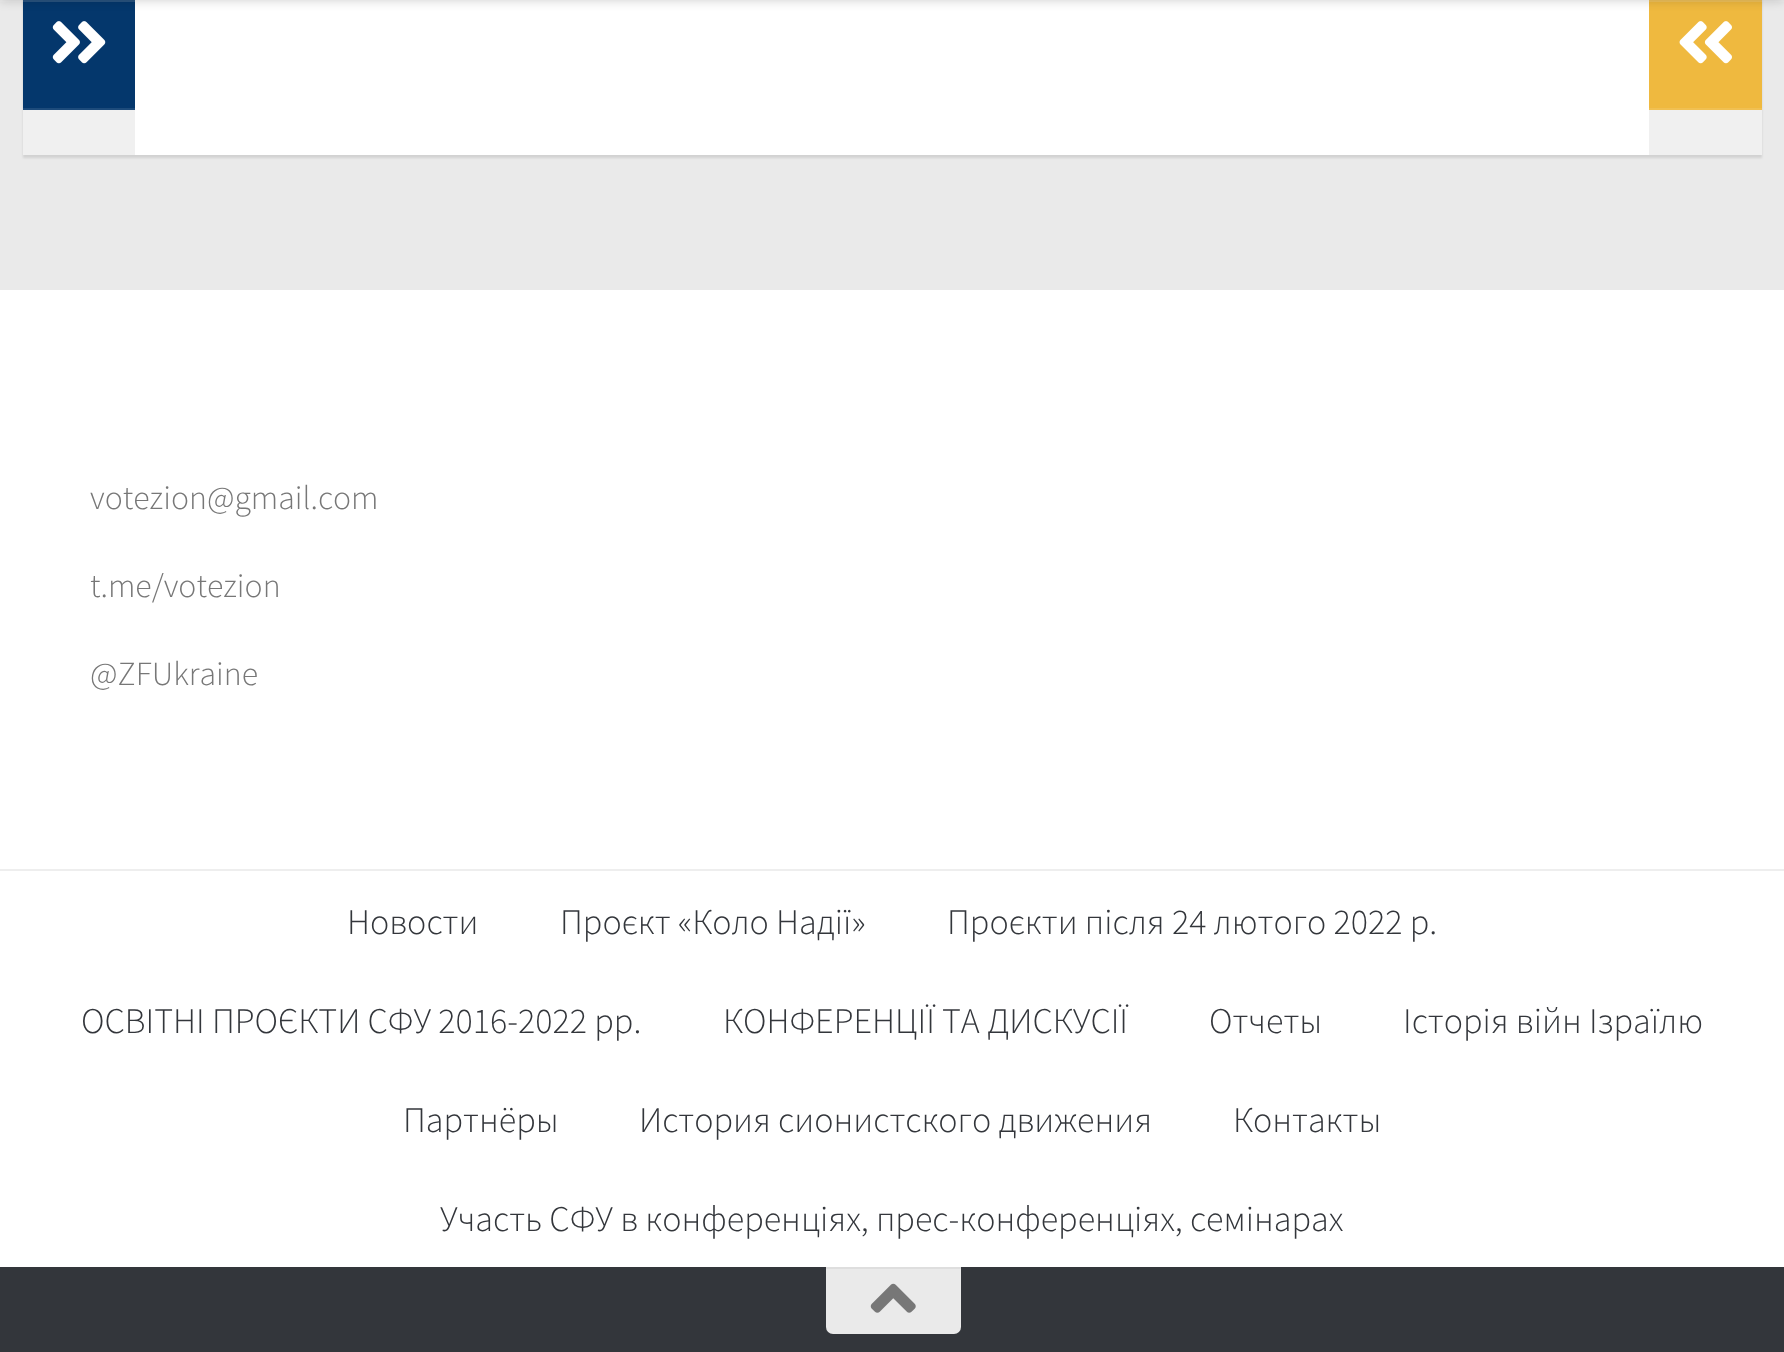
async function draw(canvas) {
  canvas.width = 1784
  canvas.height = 1352
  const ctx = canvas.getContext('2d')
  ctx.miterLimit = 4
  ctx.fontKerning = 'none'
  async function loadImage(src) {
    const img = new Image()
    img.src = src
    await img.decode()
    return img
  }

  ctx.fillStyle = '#eaeaea'
  ctx.fillRect(0, 0, 1784, 1352)
  ctx.fillStyle = '#0000001a'
  ctx.filter = 'blur(1px)'
  ctx.beginPath()
  ctx.rect(23, -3, 1739, 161)
  ctx.fill()
  ctx.filter = 'none'
  ctx.fillStyle = '#fff'
  ctx.fillRect(135, 0, 1514, 155)
  ctx.fillStyle = '#04376c'
  ctx.fillRect(23, 0, 112, 108)
  ctx.fillStyle = '#efb93f'
  ctx.fillRect(1649, 0, 113, 108)
  ctx.fillStyle = '#ffffff26'
  ctx.fillRect(0, 0, 1784, 2)
  ctx.fillStyle = '#00000033'
  ctx.filter = 'blur(5.5px)'
  ctx.beginPath()
  ctx.rect(0, -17, 1784, 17)
  ctx.fill()
  ctx.filter = 'none'
  ctx.fillStyle = '#1d4b7b'
  ctx.fillRect(23, 108, 112, 2)
  ctx.drawImage(await loadImage('image0.png'), 52, 21, 54, 43)
  ctx.fillStyle = '#f1c052'
  ctx.fillRect(1649, 108, 113, 2)
  ctx.drawImage(await loadImage('image1.png'), 1679, 21, 53, 43)
  ctx.fillStyle = '#f0f0f0'
  ctx.fillRect(23, 110, 112, 45)
  ctx.fillRect(1649, 110, 113, 45)
  ctx.fillStyle = '#fff'
  ctx.fillRect(0, 290, 1784, 977)
  ctx.font = '300 33.75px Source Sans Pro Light'
  ctx.fillStyle = '#777'
  ctx.fillText('votezion@gmail.com', 90, 509)
  ctx.fillText('t.me/votezion', 90, 597)
  ctx.fillText('@ZFUkraine', 90, 685)
  ctx.fillStyle = '#eee'
  ctx.fillRect(0, 869, 1784, 2)
  ctx.font = '300 36px Source Sans Pro Light'
  ctx.fillStyle = '#33363b'
  ctx.fillText('Новости', 347, 934)
  ctx.fillText('Проєкт «Коло Надії»', 560, 934)
  ctx.fillText('Проєкти після 24 лютого 2022 р.', 947, 934)
  ctx.fillText('ОСВІТНІ ПРОЄКТИ СФУ 2016-2022 рр.', 81, 1033)
  ctx.fillText('КОНФЕРЕНЦІЇ ТА ДИСКУСІЇ', 723, 1033)
  ctx.fillText('Отчеты', 1209, 1033)
  ctx.fillText('Історія війн Ізраїлю', 1403, 1033)
  ctx.fillText('Партнёры', 403, 1132)
  ctx.fillText('История сионистского движения', 639, 1132)
  ctx.fillText('Контакты', 1233, 1132)
  ctx.fillText('Участь СФУ в конференціях, прес-конференціях, семінарах', 440, 1231)
  ctx.fillRect(0, 1267, 1784, 85)
  ctx.fillStyle = '#eaeaea'
  ctx.beginPath()
  ctx.roundRect(826, 1267, 135, 67, [0, 0, 7, 7])
  ctx.fill()
  ctx.fillStyle = '#dedede'
  ctx.fillRect(826, 1267, 135, 2)
  ctx.drawImage(await loadImage('image2.png'), 870, 1283, 46, 30)
}

draw(document.querySelector('canvas'))
